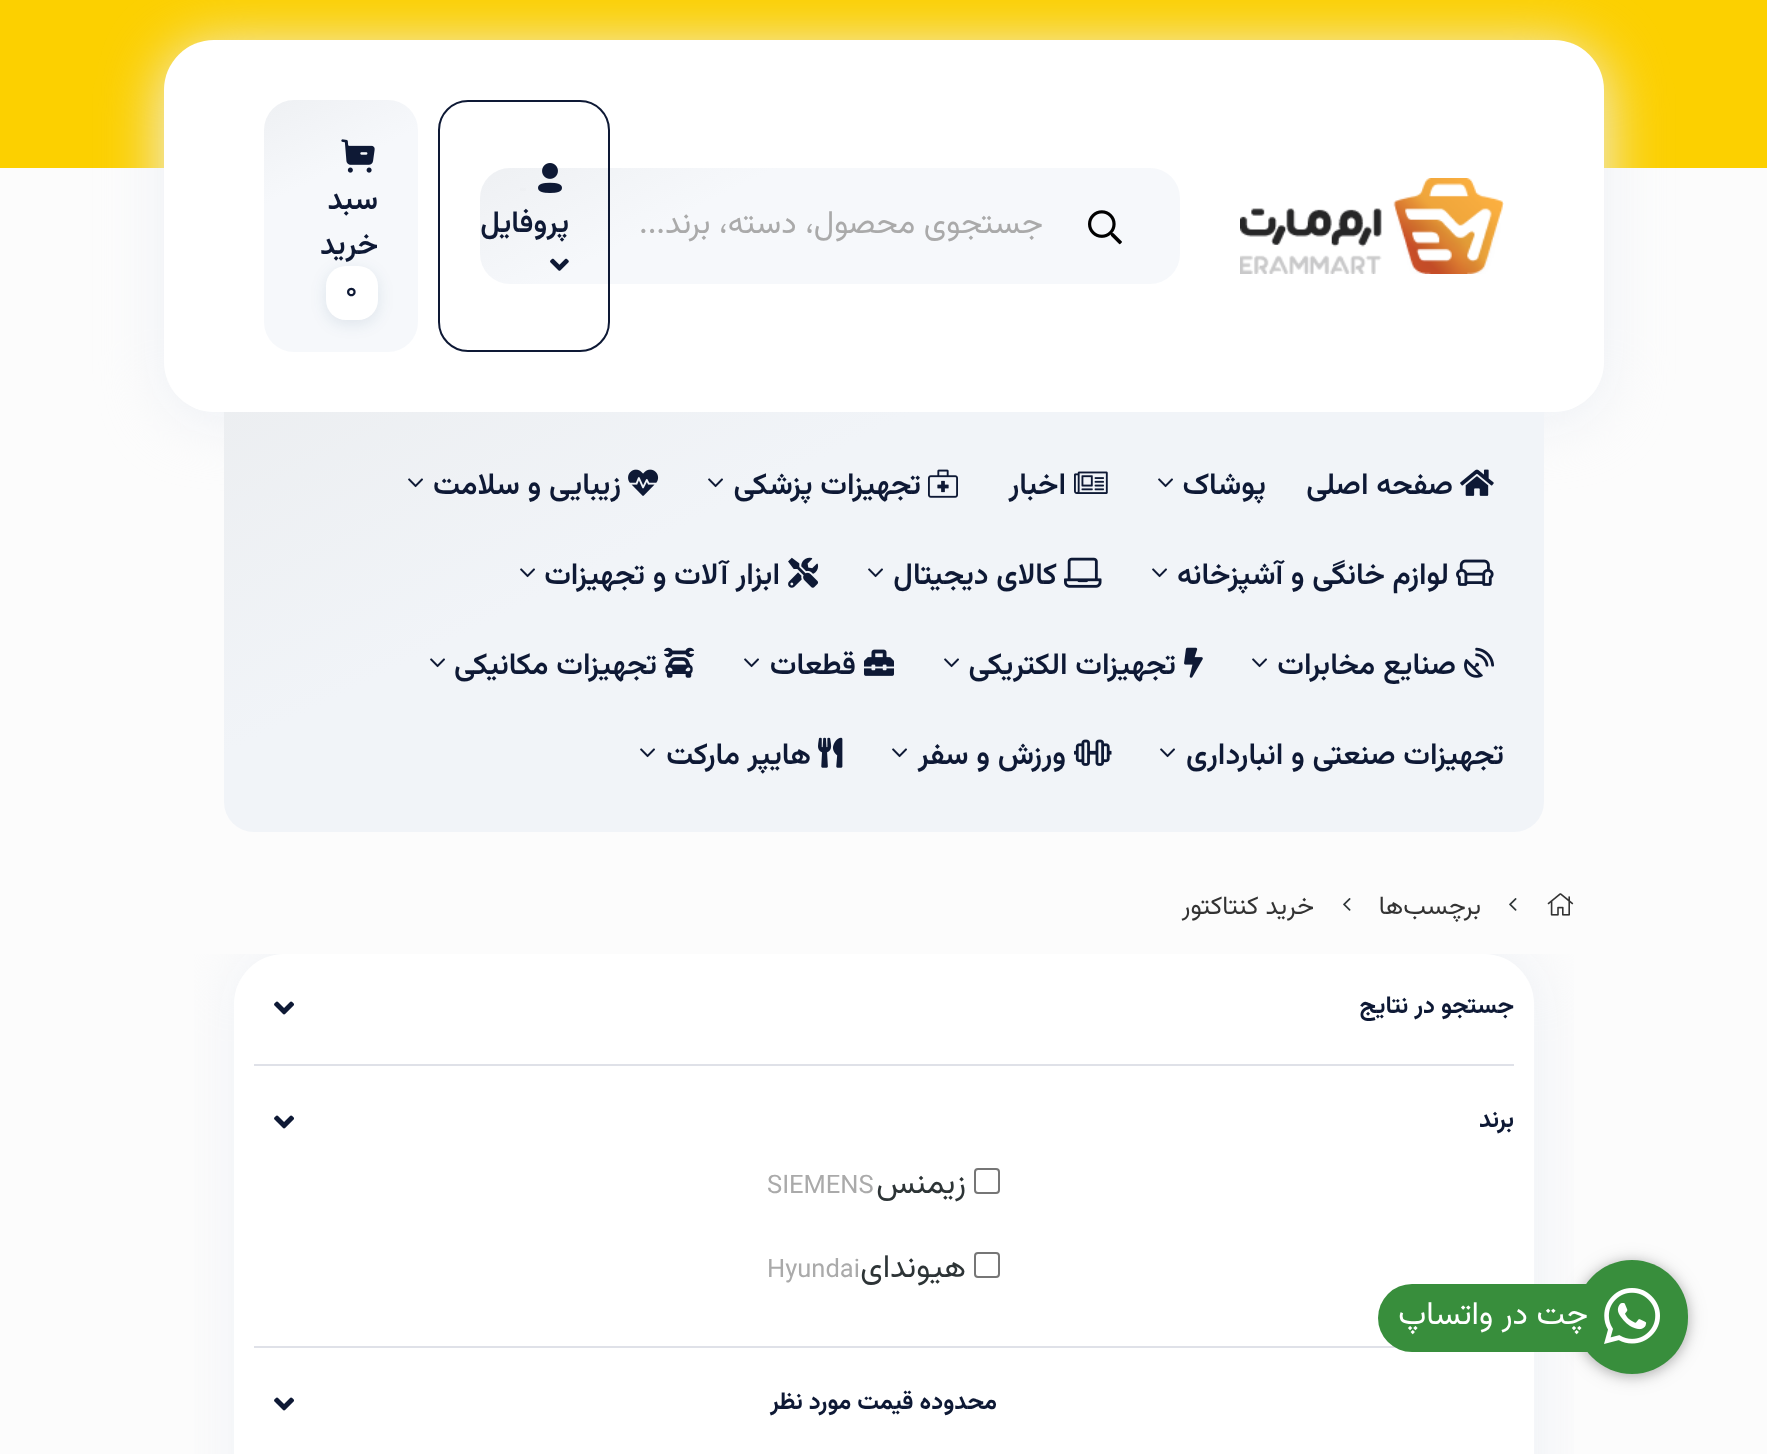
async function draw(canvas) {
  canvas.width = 1767
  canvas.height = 1454
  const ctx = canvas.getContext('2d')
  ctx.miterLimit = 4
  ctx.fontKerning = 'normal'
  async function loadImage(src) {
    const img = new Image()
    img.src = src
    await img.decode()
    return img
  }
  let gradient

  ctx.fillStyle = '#fcfcfc'
  ctx.fillRect(0, 0, 1767, 1454)
  ctx.fillStyle = '#fcd000'
  ctx.fillRect(0, 0, 1767, 168)
  ctx.fillStyle = '#edf0f5'
  ctx.filter = 'blur(30px)'
  ctx.beginPath()
  ctx.roundRect(164, 48, 1440, 372, 50)
  ctx.fill()
  ctx.filter = 'none'
  ctx.fillStyle = '#fff'
  ctx.beginPath()
  ctx.roundRect(164, 40, 1440, 372, 50)
  ctx.fill()
  ctx.drawImage(await loadImage('image0.png'), 1240, 178, 264, 96)
  gradient = ctx.createLinearGradient(922, 412, 713, -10)
  gradient.addColorStop(0.6, '#f6f8fb')
  gradient.addColorStop(1, '#ebedf0')
  ctx.fillStyle = gradient
  ctx.beginPath()
  ctx.roundRect(480, 168, 700, 116, 30)
  ctx.fill()
  ctx.drawImage(await loadImage('image1.png'), 1088, 210, 34, 35)
  gradient = ctx.createLinearGradient(863, 365, 706, 49)
  gradient.addColorStop(0.6, '#f6f8fb')
  gradient.addColorStop(1, '#ebedf0')
  ctx.fillStyle = gradient
  ctx.fillRect(520, 188, 6, 3)
  ctx.direction = 'rtl'
  ctx.font = '32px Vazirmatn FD'
  ctx.fillStyle = '#aaa'
  ctx.fillText('جستجوی محصول، دسته، برند...', 1043, 233)
  ctx.beginPath()
  ctx.roundRect(439, 101, 170, 250, 29)
  ctx.strokeStyle = '#0e1935'
  ctx.lineWidth = 2
  ctx.stroke()
  ctx.drawImage(await loadImage('image2.png'), 538, 163, 24, 30)
  ctx.font = '600 30px Vazirmatn FD'
  ctx.fillStyle = '#0e1935'
  ctx.fillText('پروفایل', 569, 232)
  ctx.drawImage(await loadImage('image3.png'), 550, 258, 19, 13)
  gradient = ctx.createLinearGradient(406, 358, 258, 59)
  gradient.addColorStop(0.6, '#f6f8fb')
  gradient.addColorStop(1, '#ebedf0')
  ctx.fillStyle = gradient
  ctx.beginPath()
  ctx.roundRect(264, 100, 154, 252, 30)
  ctx.fill()
  ctx.drawImage(await loadImage('image4.png'), 341, 139, 34, 34)
  ctx.fillStyle = '#0e1935'
  ctx.fillText('سبد', 378, 209)
  ctx.fillText('خرید', 378, 254)
  ctx.fillStyle = '#0d3b5e1a'
  ctx.filter = 'blur(8px)'
  ctx.beginPath()
  ctx.roundRect(326, 270, 52, 54, 20)
  ctx.fill()
  ctx.filter = 'none'
  ctx.fillStyle = '#fff'
  ctx.beginPath()
  ctx.roundRect(326, 266, 52, 54, 20)
  ctx.fill()
  ctx.direction = 'ltr'
  ctx.font = '30px Vazirmatn FD'
  ctx.fillStyle = '#0e1935'
  ctx.fillText('0', 345, 299)
  gradient = ctx.createLinearGradient(1097, 1053, 613, 75)
  gradient.addColorStop(0.6, '#f1f4f8')
  gradient.addColorStop(1, '#eaecee')
  ctx.fillStyle = gradient
  ctx.beginPath()
  ctx.roundRect(224, 412, 1320, 420, [0, 0, 30, 30])
  ctx.fill()
  ctx.drawImage(await loadImage('image5.png'), 1460, 469, 34, 27)
  ctx.direction = 'rtl'
  ctx.font = '600 30px Vazirmatn FD'
  ctx.fillStyle = '#0e1935'
  ctx.fillText('صفحه اصلی', 1453, 494)
  ctx.fillText('پوشاک', 1266, 494)
  ctx.drawImage(await loadImage('image6.png'), 1158, 478, 15, 10)
  ctx.drawImage(await loadImage('image7.png'), 1074, 471, 34, 23)
  ctx.fillText('اخبار', 1066, 494)
  ctx.drawImage(await loadImage('image8.png'), 928, 469, 30, 29)
  ctx.fillText('تجهیزات پزشکی', 921, 494)
  ctx.drawImage(await loadImage('image9.png'), 708, 478, 15, 10)
  ctx.drawImage(await loadImage('image10.png'), 628, 469, 31, 27)
  ctx.fillText('زیبایی و سلامت', 621, 494)
  ctx.drawImage(await loadImage('image11.png'), 408, 478, 15, 10)
  ctx.drawImage(await loadImage('image12.png'), 1456, 559, 38, 27)
  ctx.fillText('لوازم خانگی و آشپزخانه', 1449, 584)
  ctx.drawImage(await loadImage('image6.png'), 1152, 568, 15, 10)
  ctx.drawImage(await loadImage('image13.png'), 1064, 557, 38, 31)
  ctx.fillText('کالای دیجیتال', 1057, 584)
  ctx.drawImage(await loadImage('image6.png'), 868, 568, 15, 10)
  ctx.drawImage(await loadImage('image14.png'), 788, 557, 31, 31)
  ctx.fillText('ابزار آلات و تجهیزات', 780, 584)
  ctx.drawImage(await loadImage('image15.png'), 520, 568, 15, 10)
  ctx.drawImage(await loadImage('image16.png'), 1464, 647, 31, 31)
  ctx.fillText('صنایع مخابرات', 1456, 674)
  ctx.drawImage(await loadImage('image6.png'), 1252, 658, 15, 10)
  ctx.drawImage(await loadImage('image17.png'), 1184, 647, 19, 31)
  ctx.fillText('تجهیزات الکتریکی', 1176, 674)
  ctx.drawImage(await loadImage('image6.png'), 944, 658, 15, 10)
  ctx.drawImage(await loadImage('image18.png'), 864, 649, 30, 27)
  ctx.fillText('قطعات', 856, 674)
  ctx.drawImage(await loadImage('image6.png'), 744, 658, 15, 10)
  ctx.drawImage(await loadImage('image19.png'), 664, 647, 30, 31)
  ctx.fillText('تجهیزات مکانیکی', 657, 674)
  ctx.drawImage(await loadImage('image6.png'), 430, 658, 15, 10)
  ctx.fillText('تجهیزات صنعتی و انبارداری', 1504, 764)
  ctx.drawImage(await loadImage('image6.png'), 1160, 748, 15, 10)
  ctx.drawImage(await loadImage('image20.png'), 1074, 739, 38, 27)
  ctx.fillText('ورزش و سفر', 1066, 764)
  ctx.drawImage(await loadImage('image6.png'), 892, 748, 15, 10)
  ctx.drawImage(await loadImage('image21.png'), 818, 737, 25, 31)
  ctx.fillText('هایپر مارکت', 811, 764)
  ctx.drawImage(await loadImage('image6.png'), 640, 748, 15, 10)
  ctx.drawImage(await loadImage('image22.png'), 1547, 893, 27, 23)
  ctx.drawImage(await loadImage('image23.png'), 1509, 898, 8, 13)
  ctx.font = '25.5px Vazirmatn FD'
  ctx.fillStyle = '#333'
  ctx.fillText('برچسب‌ها', 1481, 914)
  ctx.drawImage(await loadImage('image23.png'), 1343, 898, 8, 13)
  ctx.fillText('خرید کنتاکتور', 1314, 914)
  ctx.save()
  ctx.beginPath()
  ctx.rect(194, 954, 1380, 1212)
  ctx.clip()
  ctx.fillStyle = '#edf0f5'
  ctx.filter = 'blur(30px)'
  ctx.beginPath()
  ctx.roundRect(238, 950, 1300, 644, 50)
  ctx.fill()
  ctx.filter = 'none'
  ctx.restore()
  ctx.fillStyle = '#fff'
  ctx.beginPath()
  ctx.roundRect(234, 954, 1300, 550, 50)
  ctx.fill()
  ctx.font = 'bold 24px Vazirmatn FD'
  ctx.fillStyle = '#0e1935'
  ctx.fillText('جستجو در نتایج', 1514, 1013)
  ctx.drawImage(await loadImage('image24.png'), 274, 1001, 20, 14)
  ctx.fillStyle = '#dfe1e8'
  ctx.fillRect(254, 1064, 1260, 2)
  ctx.fillStyle = '#0e1935'
  ctx.fillText('برند', 1514, 1127)
  ctx.drawImage(await loadImage('image24.png'), 274, 1115, 20, 14)
  ctx.beginPath()
  ctx.roundRect(975, 1169, 24, 24, 3)
  ctx.strokeStyle = '#767676'
  ctx.stroke()
  ctx.font = '32px Vazirmatn FD'
  ctx.fillStyle = '#2d3436'
  ctx.fillText('زیمنس', 966, 1193)
  ctx.direction = 'ltr'
  ctx.font = '25.5px Vazirmatn FD'
  ctx.fillStyle = '#aaa'
  ctx.fillText('SIEMENS', 767, 1193)
  ctx.beginPath()
  ctx.roundRect(975, 1253, 24, 24, 3)
  ctx.stroke()
  ctx.direction = 'rtl'
  ctx.font = '32px Vazirmatn FD'
  ctx.fillStyle = '#2d3436'
  ctx.fillText('هیوندای', 966, 1277)
  ctx.direction = 'ltr'
  ctx.font = '25.5px Vazirmatn FD'
  ctx.fillStyle = '#aaa'
  ctx.fillText('Hyundai', 767, 1277)
  ctx.fillStyle = '#dfe1e8'
  ctx.fillRect(254, 1346, 1142, 2)
  ctx.direction = 'rtl'
  ctx.font = 'bold 24px Vazirmatn FD'
  ctx.fillStyle = '#0e1935'
  ctx.fillText('محدوده قیمت مورد نظر', 997, 1409)
  ctx.drawImage(await loadImage('image24.png'), 274, 1397, 20, 14)
  ctx.fillStyle = '#00000026'
  ctx.filter = 'blur(10px)'
  ctx.beginPath()
  ctx.roundRect(1576, 1262, 112, 114, 56)
  ctx.fill()
  ctx.filter = 'none'
  ctx.fillStyle = '#00000033'
  ctx.filter = 'blur(6px)'
  ctx.beginPath()
  ctx.roundRect(1576, 1262, 112, 114, 56)
  ctx.fill()
  ctx.filter = 'none'
  ctx.fillStyle = '#388e3c'
  ctx.beginPath()
  ctx.roundRect(1576, 1260, 112, 114, 56)
  ctx.fill()
  ctx.drawImage(await loadImage('image25.png'), 1604, 1288, 56, 56)
  ctx.beginPath()
  ctx.roundRect(1378, 1284, 210, 68, [34, 0, 0, 34])
  ctx.fill()
  ctx.font = '32px Vazirmatn FD'
  ctx.fillStyle = '#fff'
  ctx.fillText('چت در واتساپ', 1588, 1324)
}

draw(document.querySelector('canvas'))
